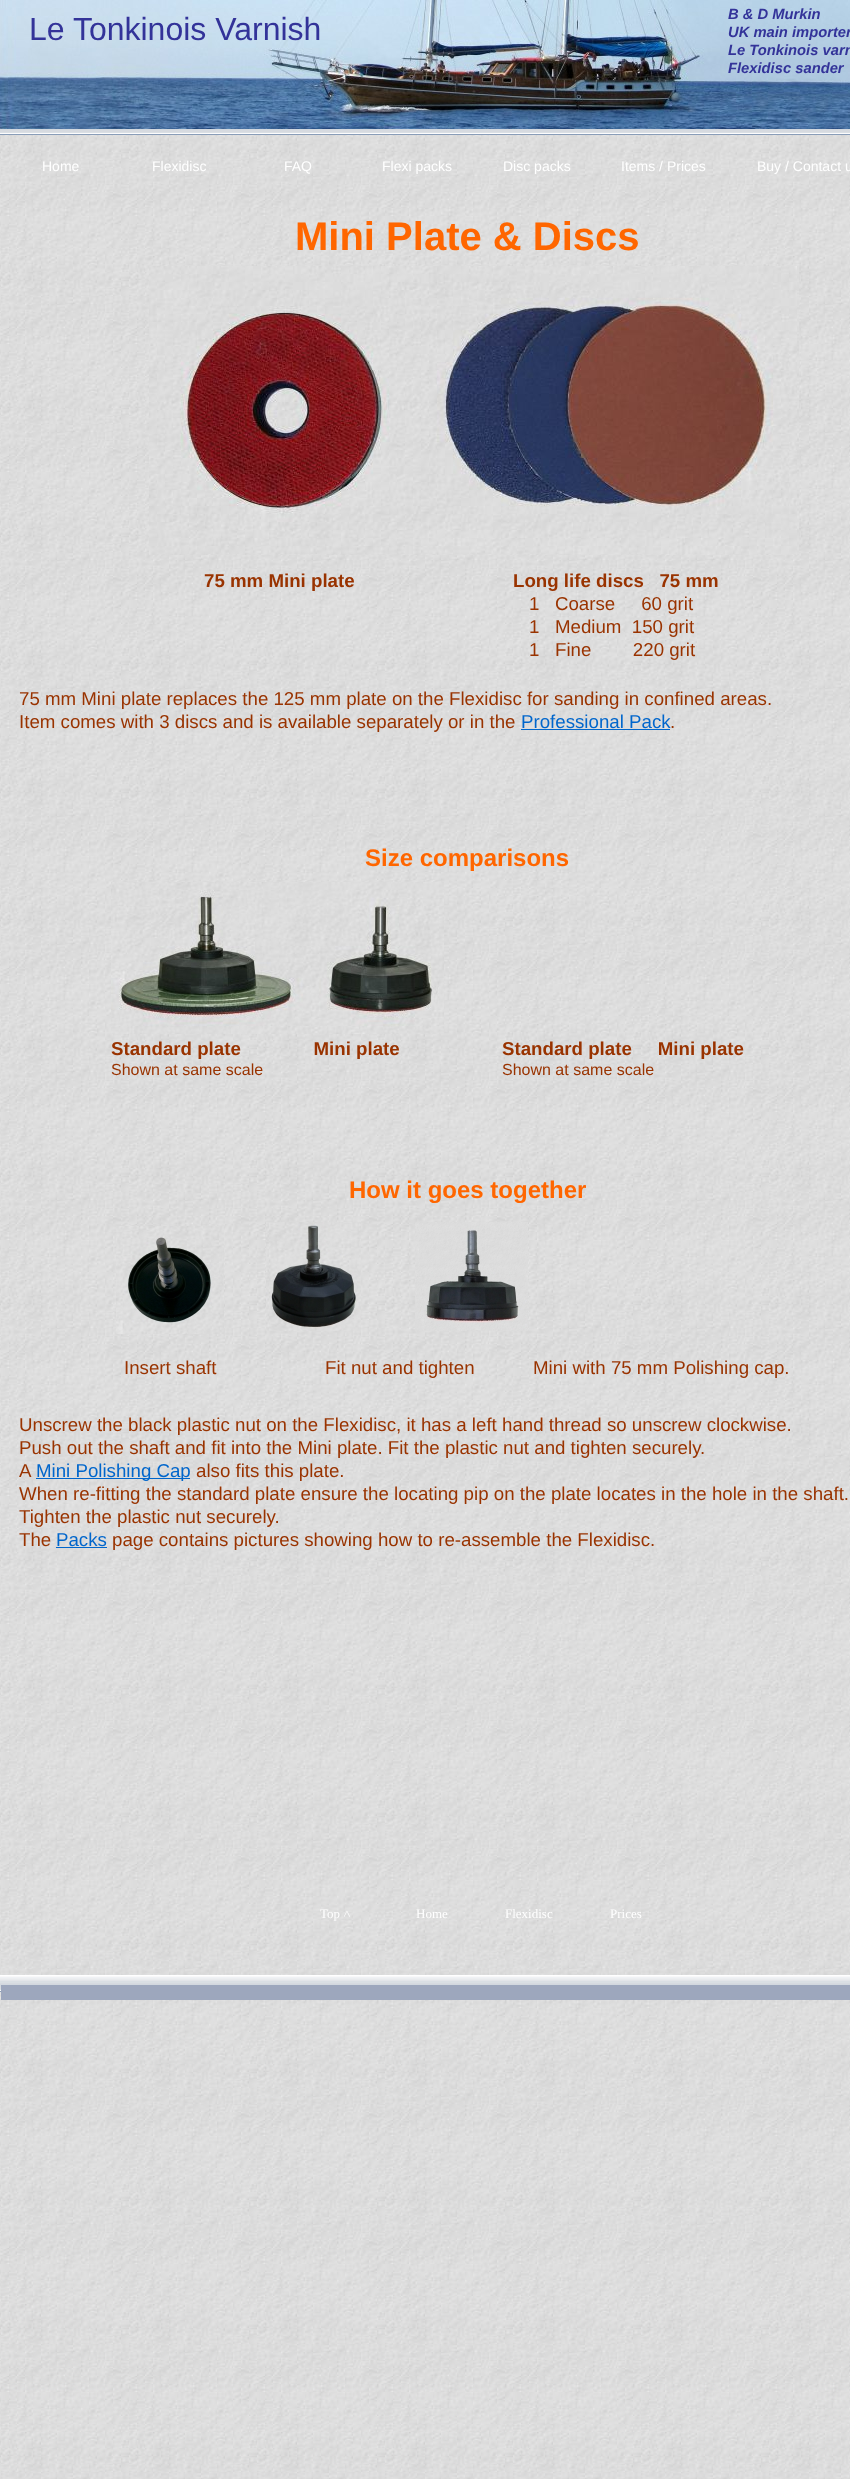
async function draw(canvas) {
  canvas.width = 850
  canvas.height = 2479
  const ctx = canvas.getContext('2d')
  ctx.miterLimit = 4
  ctx.fontKerning = 'normal'
  async function loadImage(src) {
    const img = new Image()
    img.src = src
    await img.decode()
    return img
  }

  ctx.fillStyle = '#fff'
  ctx.fillRect(0, 0, 850, 2479)
  ctx.drawImage(await loadImage('image0.png'), 0, 135, 850, 2344)
  ctx.drawImage(await loadImage('image1.png'), 0, 0, 850, 129)
  ctx.font = '32px Liberation Sans'
  ctx.fillStyle = '#339'
  ctx.fillText('Le Tonkinois Varnish', 29, 40)
  ctx.font = 'italic bold 14.75px Liberation Sans'
  ctx.fillText('B & D Murkin', 728, 19)
  ctx.fillText('UK main importer', 728, 37)
  ctx.fillText('Le Tonkinois varn', 728, 55)
  ctx.fillText('Flexidisc sander', 728, 73)
  ctx.drawImage(await loadImage('image2.png'), 0, 129, 850, 6)
  ctx.font = '14px Liberation Sans'
  ctx.fillStyle = '#fff'
  ctx.fillText('Home', 42, 171)
  ctx.fillText('Flexidisc', 152, 171)
  ctx.fillText('FAQ', 284, 171)
  ctx.fillText('Flexi packs', 382, 171)
  ctx.fillText('Disc packs', 503, 171)
  ctx.fillText('Items / Prices', 621, 171)
  ctx.fillText('Buy / Contact u', 757, 171)
  ctx.font = 'bold 40px Liberation Sans'
  ctx.fillStyle = '#f60'
  ctx.fillText('Mini Plate & Discs', 295, 250)
  ctx.drawImage(await loadImage('image3.png'), 149, 266, 650, 289)
  ctx.font = 'bold 18.7px Liberation Sans'
  ctx.fillStyle = '#930'
  ctx.fillText('75 mm Mini plate', 204, 587)
  ctx.fillText('Long life discs   75 mm', 513, 587)
  ctx.font = '18.7px Liberation Sans'
  ctx.fillText('1   Coarse     60 grit', 529, 610)
  ctx.fillText('1   Medium  150 grit', 529, 633)
  ctx.fillText('1   Fine        220 grit', 529, 656)
  ctx.fillText('75 mm Mini plate replaces the 125 mm plate on the Flexidisc for sanding in confined areas.', 19, 705)
  ctx.fillText('Item comes with 3 discs and is available separately or in the', 19, 728)
  ctx.fillStyle = '#06c'
  ctx.fillText('Professional Pack', 521, 728)
  ctx.fillStyle = '#930'
  ctx.fillText('.', 670, 728)
  ctx.fillStyle = '#06c'
  ctx.fillRect(521, 729, 149, 1)
  ctx.font = 'bold 24px Liberation Sans'
  ctx.fillStyle = '#f60'
  ctx.fillText('Size comparisons', 365, 866)
  ctx.drawImage(await loadImage('image4.png'), 111, 882, 333, 152)
  ctx.font = 'bold 18.7px Liberation Sans'
  ctx.fillStyle = '#930'
  ctx.fillText('Standard plate              Mini plate', 111, 1055)
  ctx.font = '16px Liberation Sans'
  ctx.fillText('Shown at same scale', 111, 1075)
  ctx.font = 'bold 18.7px Liberation Sans'
  ctx.fillText('Standard plate     Mini plate', 502, 1055)
  ctx.font = '16px Liberation Sans'
  ctx.fillText('Shown at same scale', 502, 1075)
  ctx.font = 'bold 24px Liberation Sans'
  ctx.fillStyle = '#f60'
  ctx.fillText('How it goes together', 349, 1198)
  ctx.drawImage(await loadImage('image5.png'), 116, 1226, 108, 108)
  ctx.drawImage(await loadImage('image6.png'), 266, 1222, 95, 109)
  ctx.drawImage(await loadImage('image7.png'), 415, 1222, 113, 109)
  ctx.font = '18.7px Liberation Sans'
  ctx.fillStyle = '#930'
  ctx.fillText('Insert shaft', 124, 1374)
  ctx.fillText('Fit nut and tighten', 325, 1374)
  ctx.fillText('Mini with 75 mm Polishing cap.', 533, 1374)
  ctx.fillText('Unscrew the black plastic nut on the Flexidisc, it has a left hand thread so unscrew clockwise.', 19, 1431)
  ctx.fillText('Push out the shaft and fit into the Mini plate. Fit the plastic nut and tighten securely.', 19, 1454)
  ctx.fillText('A', 19, 1477)
  ctx.fillStyle = '#06c'
  ctx.fillRect(36, 1478, 154, 1)
  ctx.fillText('Mini Polishing Cap', 36, 1477)
  ctx.fillStyle = '#930'
  ctx.fillText('also fits this plate.', 196, 1477)
  ctx.fillText('When re-fitting the standard plate ensure the locating pip on the plate locates in the hole in the shaft.', 19, 1500)
  ctx.fillText('Tighten the plastic nut securely.', 19, 1523)
  ctx.fillText('The', 19, 1546)
  ctx.fillStyle = '#06c'
  ctx.fillText('Packs', 56, 1546)
  ctx.fillRect(56, 1547, 51, 1)
  ctx.fillStyle = '#930'
  ctx.fillText('page contains pictures showing how to re-assemble the Flexidisc.', 112, 1546)
  ctx.font = '13px Liberation Serif'
  ctx.fillStyle = '#fff'
  ctx.fillText('Top ˄', 320, 1918)
  ctx.fillText('Home', 416, 1918)
  ctx.fillText('Flexidisc', 505, 1918)
  ctx.fillText('Prices', 610, 1918)
  ctx.drawImage(await loadImage('image8.png'), 0, 1975, 850, 17)
  ctx.fillStyle = '#9da7bd'
  ctx.fillRect(1, 1985, 849, 15)
}

draw(document.querySelector('canvas'))
